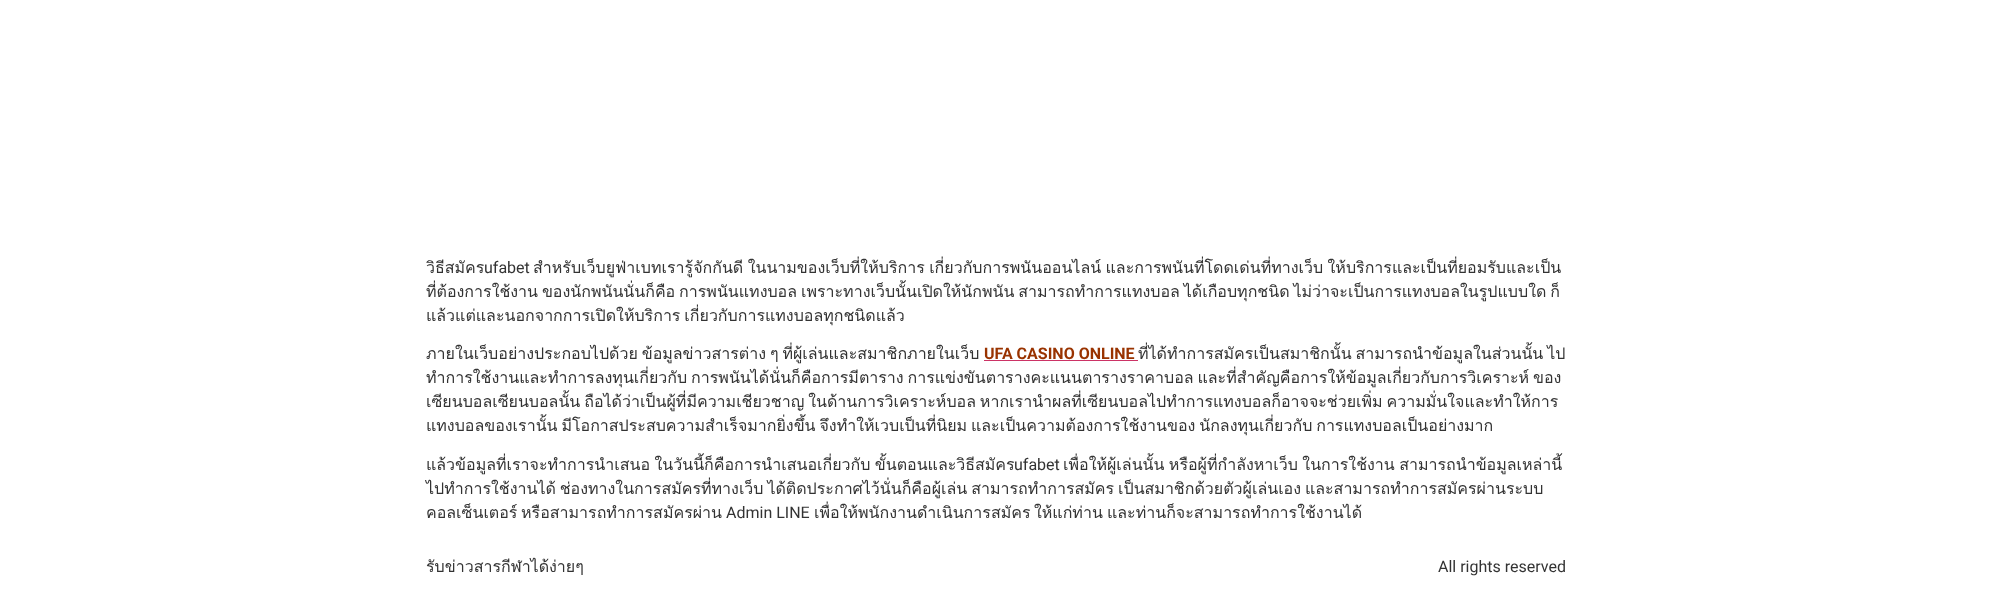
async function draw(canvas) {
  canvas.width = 1992
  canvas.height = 595
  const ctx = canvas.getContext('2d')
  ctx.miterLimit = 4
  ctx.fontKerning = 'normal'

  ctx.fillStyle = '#fff'
  ctx.fillRect(0, 0, 1992, 595)
  ctx.font = '16px Loma'
  ctx.fillStyle = '#333'
  ctx.fillText('วิธีสมัคร', 426, 273)
  ctx.font = '16px Roboto'
  ctx.fillText('ufabet', 484, 273)
  ctx.wordSpacing = '-1px'
  ctx.font = '16px Loma'
  ctx.fillText('สำหรับเว็บยูฟ่าเบทเรารู้จักกันดี ในนามของเว็บที่ให้บริการ เกี่ยวกับการพนันออนไลน์ และการพนันที่โดดเด่นที่ทางเว็บ ให้บริการและเป็นที่ยอมรับและเป็น', 533, 273)
  ctx.wordSpacing = '-1.5px'
  ctx.fillText('ที่ต้องการใช้งาน ของนักพนันนั่นก็คือ การพนันแทงบอล เพราะทางเว็บนั้นเปิดให้นักพนัน สามารถทำการแทงบอล ได้เกือบทุกชนิด ไม่ว่าจะเป็นการแทงบอลในรูปแบบใด ก็', 426, 297)
  ctx.fillText('แล้วแต่และนอกจากการเปิดให้บริการ เกี่ยวกับการแทงบอลทุกชนิดแล้ว', 426, 321)
  ctx.fillText('ภายในเว็บอย่างประกอบไปด้วย ข้อมูลข่าวสารต่าง ๆ ที่ผู้เล่นและสมาชิกภายในเว็บ', 426, 359)
  ctx.wordSpacing = '0px'
  ctx.font = 'bold 16px Roboto'
  ctx.fillStyle = '#930'
  ctx.fillText('UFA CASINO ONLINE', 984, 359)
  ctx.fillStyle = '#c36'
  ctx.fillRect(984, 360, 154, 1)
  ctx.wordSpacing = '-1.5px'
  ctx.font = '16px Loma'
  ctx.fillStyle = '#333'
  ctx.fillText('ที่ได้ทำการสมัครเป็นสมาชิกนั้น สามารถนำข้อมูลในส่วนนั้น ไป', 1138, 359)
  ctx.fillText('ทำการใช้งานและทำการลงทุนเกี่ยวกับ การพนันได้นั่นก็คือการมีตาราง การแข่งขันตารางคะแนนตารางราคาบอล และที่สำคัญคือการให้ข้อมูลเกี่ยวกับการวิเคราะห์ ของ', 426, 383)
  ctx.fillText('เซียนบอลเซียนบอลนั้น ถือได้ว่าเป็นผู้ที่มีความเชียวชาญ ในด้านการวิเคราะห์บอล หากเรานำผลที่เซียนบอลไปทำการแทงบอลก็อาจจะช่วยเพิ่ม ความมั่นใจและทำให้การ', 426, 407)
  ctx.fillText('แทงบอลของเรานั้น มีโอกาสประสบความสำเร็จมากยิ่งขึ้น จึงทำให้เวบเป็นที่นิยม และเป็นความต้องการใช้งานของ นักลงทุนเกี่ยวกับ การแทงบอลเป็นอย่างมาก', 426, 431)
  ctx.wordSpacing = '-1px'
  ctx.fillText('แล้วข้อมูลที่เราจะทำการนำเสนอ ในวันนี้ก็คือการนำเสนอเกี่ยวกับ ขั้นตอนและวิธีสมัคร', 426, 470)
  ctx.wordSpacing = '0px'
  ctx.font = '16px Roboto'
  ctx.fillText('ufabet', 1014, 470)
  ctx.wordSpacing = '-1px'
  ctx.font = '16px Loma'
  ctx.fillText('เพื่อให้ผู้เล่นนั้น หรือผู้ที่กำลังหาเว็บ ในการใช้งาน สามารถนำข้อมูลเหล่านี้', 1063, 470)
  ctx.wordSpacing = '-1.5px'
  ctx.fillText('ไปทำการใช้งานได้ ช่องทางในการสมัครที่ทางเว็บ ได้ติดประกาศไว้นั่นก็คือผู้เล่น สามารถทำการสมัคร เป็นสมาชิกด้วยตัวผู้เล่นเอง และสามารถทำการสมัครผ่านระบบ', 426, 494)
  ctx.wordSpacing = '0px'
  ctx.fillText('คอลเซ็นเตอร์', 426, 518)
  ctx.fillText('หรือสามารถทำการสมัครผ่าน', 521, 518)
  ctx.font = '16px Roboto'
  ctx.fillText('Admin LINE', 726, 518)
  ctx.font = '16px Loma'
  ctx.fillText('เพื่อให้พนักงานดำเนินการสมัคร', 814, 518)
  ctx.fillText('ให้แก่ท่าน', 1034, 518)
  ctx.fillText('และท่านก็จะสามารถทำการใช้งานได้', 1107, 518)
  ctx.fillText('รับข่าวสารกีฬาได้ง่ายๆ', 426, 572)
  ctx.font = '16px Roboto'
  ctx.fillText('All rights reserved', 1438, 572)
}

draw(document.querySelector('canvas'))
